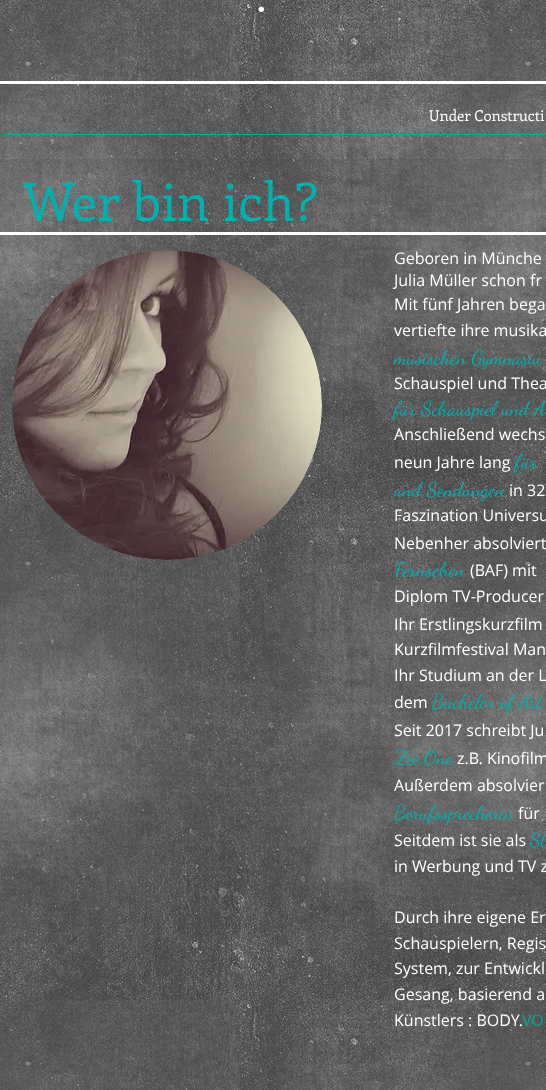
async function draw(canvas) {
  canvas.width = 546
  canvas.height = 1090
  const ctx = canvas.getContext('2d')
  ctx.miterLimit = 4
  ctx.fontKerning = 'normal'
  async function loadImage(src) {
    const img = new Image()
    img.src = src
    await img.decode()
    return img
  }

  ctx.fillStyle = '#474646'
  ctx.fillRect(0, 0, 546, 1090)
  ctx.drawImage(await loadImage('image0.png'), 0, 0, 546, 1090)
  ctx.font = '86px Josefin Slab'
  ctx.fillStyle = '#fff'
  ctx.fillText('.', 254, 12)
  ctx.fillRect(0, 81, 546, 3)
  ctx.font = '15px Enriqueta'
  ctx.fillText('Under Constructi', 429, 121)
  ctx.fillStyle = '#01b1af'
  ctx.fillRect(5, 134, 541, 1)
  ctx.fillStyle = '#47464633'
  ctx.fillRect(0, 159, 546, 931)
  ctx.font = '53px Enriqueta'
  ctx.fillStyle = '#01b1af'
  ctx.fillText('Wer bin ich?', 23, 221)
  ctx.fillStyle = '#fff'
  ctx.fillRect(0, 232, 546, 3)
  ctx.drawImage(await loadImage('image1.png'), 12, 250, 310, 310)
  ctx.font = '16px Open Sans'
  ctx.fillText('Geboren in Münche', 394, 264)
  ctx.fillText('Julia Müller schon fr', 394, 286)
  ctx.fillText('Mit fünf Jahren bega', 394, 310)
  ctx.fillText('vertiefte ihre musika', 394, 336)
  ctx.font = '20px Dancing Script'
  ctx.fillStyle = '#01b1af'
  ctx.fillText('musischen Gymnasiu', 394, 364)
  ctx.font = '16px Open Sans'
  ctx.fillStyle = '#fff'
  ctx.fillText('Schauspiel und Thea', 394, 389)
  ctx.font = '20px Dancing Script'
  ctx.fillStyle = '#01b1af'
  ctx.fillText('für Schauspiel und A', 394, 415)
  ctx.font = '16px Open Sans'
  ctx.fillStyle = '#fff'
  ctx.fillText('Anschließend wechs', 394, 440)
  ctx.fillText('neun Jahre lang', 394, 468)
  ctx.font = '20px Dancing Script'
  ctx.fillStyle = '#01b1af'
  ctx.fillText('für', 515, 468)
  ctx.fillText('und Sendungen', 394, 496)
  ctx.font = '16px Open Sans'
  ctx.fillStyle = '#fff'
  ctx.fillText('in 32', 509, 496)
  ctx.fillText('Faszination Universu', 394, 521)
  ctx.fillText('Nebenher absolviert', 394, 549)
  ctx.font = '20px Dancing Script'
  ctx.fillStyle = '#01b1af'
  ctx.fillText('Fernsehen', 394, 576)
  ctx.font = '16px Open Sans'
  ctx.fillStyle = '#fff'
  ctx.fillText('(BAF) mit', 470, 576)
  ctx.fillText('Diplom TV-Producer', 394, 602)
  ctx.fillText('Ihr Erstlingskurzfilm', 394, 630)
  ctx.fillText('Kurzfilmfestival Man', 394, 655)
  ctx.fillText('Ihr Studium an der L', 394, 681)
  ctx.fillText('dem', 394, 708)
  ctx.font = '20px Dancing Script'
  ctx.fillStyle = '#01b1af'
  ctx.fillText('Bachelor of Art', 432, 708)
  ctx.font = '16px Open Sans'
  ctx.fillStyle = '#fff'
  ctx.fillText('Seit 2017 schreibt Ju', 394, 736)
  ctx.font = '20px Dancing Script'
  ctx.fillStyle = '#01b1af'
  ctx.fillText('Zee.One', 394, 764)
  ctx.font = '16px Open Sans'
  ctx.fillStyle = '#fff'
  ctx.fillText('z.B. Kinofilm', 457, 764)
  ctx.fillText('Außerdem absolvier', 394, 791)
  ctx.font = '20px Dancing Script'
  ctx.fillStyle = '#01b1af'
  ctx.fillText('Berufssprecherin', 394, 819)
  ctx.font = '16px Open Sans'
  ctx.fillStyle = '#fff'
  ctx.fillText('für', 518, 819)
  ctx.fillText('Seitdem ist sie als', 394, 846)
  ctx.font = '20px Dancing Script'
  ctx.fillStyle = '#01b1af'
  ctx.fillText('St', 530, 846)
  ctx.font = '16px Open Sans'
  ctx.fillStyle = '#fff'
  ctx.fillText('in Werbung und TV z', 394, 872)
  ctx.fillText('Durch ihre eigene Er', 394, 923)
  ctx.fillText('Schauspielern, Regis', 394, 949)
  ctx.fillText('System, zur Entwickl', 394, 974)
  ctx.fillText('Gesang, basierend a', 394, 1000)
  ctx.fillText('Künstlers : BODY.', 394, 1026)
  ctx.fillStyle = '#00a99d'
  ctx.fillText('VO', 522, 1026)
}

draw(document.querySelector('canvas'))
